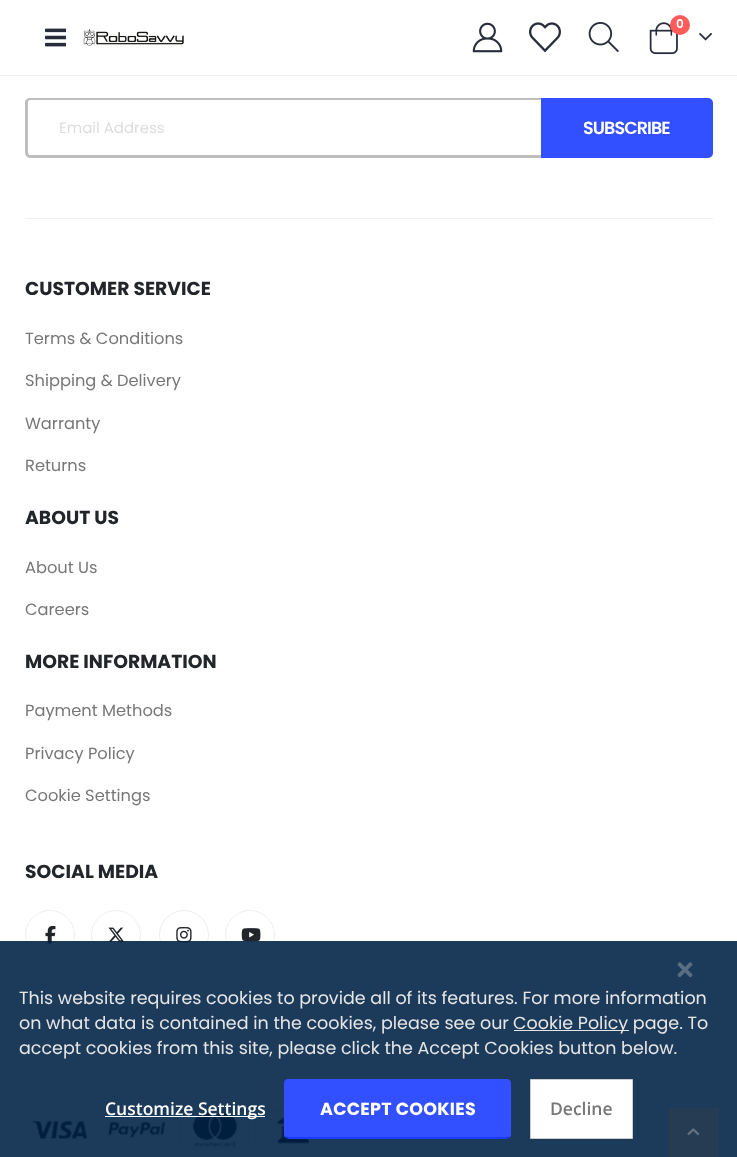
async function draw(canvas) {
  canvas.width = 737
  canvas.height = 1157
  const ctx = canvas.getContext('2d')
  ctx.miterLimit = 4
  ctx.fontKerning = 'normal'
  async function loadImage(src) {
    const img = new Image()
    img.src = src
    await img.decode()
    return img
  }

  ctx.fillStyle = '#fff'
  ctx.fillRect(0, 0, 737, 1157)
  ctx.fillStyle = '#f0f0f0'
  ctx.beginPath()
  ctx.moveTo(0, 75)
  ctx.lineTo(0, 76)
  ctx.lineTo(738, 76)
  ctx.lineTo(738, 1)
  ctx.lineTo(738, 75)
  ctx.closePath()
  ctx.fill()
  ctx.drawImage(await loadImage('image0.png'), 472, 22, 31, 31)
  ctx.drawImage(await loadImage('image1.png'), 529, 22, 32, 31)
  ctx.drawImage(await loadImage('image2.png'), 588, 22, 31, 30)
  ctx.drawImage(await loadImage('image3.png'), 649, 22, 29, 33)
  ctx.fillStyle = '#ff5b5b'
  ctx.beginPath()
  ctx.arc(680, 25, 10, 0, 2 * Math.PI)
  ctx.fill()
  ctx.font = '600 12px Poppins'
  ctx.fillStyle = '#fff'
  ctx.fillText('0', 676, 28)
  ctx.drawImage(await loadImage('image4.png'), 699, 32, 13, 9)
  ctx.drawImage(await loadImage('image5.png'), 45, 28, 21, 19)
  ctx.drawImage(await loadImage('image6.png'), 83, 29, 101, 17)
  ctx.fillStyle = '#bebebe'
  ctx.beginPath()
  ctx.moveTo(30, 98)
  ctx.lineTo(541, 98)
  ctx.lineTo(541, 158)
  ctx.lineTo(30, 158)
  ctx.bezierCurveTo(27, 158, 25, 155, 25, 152)
  ctx.lineTo(25, 102)
  ctx.bezierCurveTo(25, 100, 27, 98, 30, 98)
  ctx.closePath()
  ctx.moveTo(30, 100)
  ctx.lineTo(541, 100)
  ctx.lineTo(541, 155)
  ctx.lineTo(30, 155)
  ctx.bezierCurveTo(29, 155, 28, 154, 28, 152)
  ctx.lineTo(28, 102)
  ctx.bezierCurveTo(28, 101, 29, 100, 30, 100)
  ctx.closePath()
  ctx.fill('evenodd')
  ctx.font = '15px Poppins'
  ctx.fillStyle = '#ddd'
  ctx.fillText('Email Address', 59, 133)
  ctx.fillStyle = '#3250ff'
  ctx.beginPath()
  ctx.roundRect(541, 98, 172, 60, [0, 5, 5, 0])
  ctx.fill()
  ctx.letterSpacing = '-0.9px'
  ctx.font = '600 17.5px Poppins'
  ctx.fillStyle = '#fff'
  ctx.fillText('SUBSCRIBE', 583, 134)
  ctx.fillStyle = '#f0f0f0'
  ctx.fillRect(25, 218, 688, 1)
  ctx.letterSpacing = '0px'
  ctx.font = 'bold 18.75px Poppins'
  ctx.fillStyle = '#222529'
  ctx.fillText('CUSTOMER SERVICE', 25, 295)
  ctx.font = '16.25px Poppins'
  ctx.fillStyle = '#777'
  ctx.fillText('Terms & Conditions', 25, 344)
  ctx.fillText('Shipping & Delivery', 25, 386)
  ctx.fillText('Warranty', 25, 429)
  ctx.fillText('Returns', 25, 471)
  ctx.font = 'bold 18.75px Poppins'
  ctx.fillStyle = '#222529'
  ctx.fillText('ABOUT US', 25, 524)
  ctx.font = '16.25px Poppins'
  ctx.fillStyle = '#777'
  ctx.fillText('About Us', 25, 573)
  ctx.fillText('Careers', 25, 615)
  ctx.font = 'bold 18.75px Poppins'
  ctx.fillStyle = '#222529'
  ctx.fillText('MORE INFORMATION', 25, 668)
  ctx.font = '16.25px Poppins'
  ctx.fillStyle = '#777'
  ctx.fillText('Payment Methods', 25, 716)
  ctx.fillText('Privacy Policy', 25, 759)
  ctx.fillText('Cookie Settings', 25, 801)
  ctx.font = 'bold 18.75px Poppins'
  ctx.fillStyle = '#222529'
  ctx.fillText('SOCIAL MEDIA', 25, 878)
  ctx.beginPath()
  ctx.arc(50, 935, 24.5, 0, 2 * Math.PI)
  ctx.strokeStyle = '#eee'
  ctx.stroke()
  ctx.drawImage(await loadImage('image7.png'), 45, 925, 11, 19)
  ctx.beginPath()
  ctx.arc(116, 935, 24.5, 0, 2 * Math.PI)
  ctx.stroke()
  ctx.drawImage(await loadImage('image8.png'), 108, 927, 16, 15)
  ctx.beginPath()
  ctx.arc(184, 935, 24.5, 0, 2 * Math.PI)
  ctx.stroke()
  ctx.drawImage(await loadImage('image9.png'), 176, 927, 16, 16)
  ctx.beginPath()
  ctx.arc(250, 935, 24.5, 0, 2 * Math.PI)
  ctx.stroke()
  ctx.drawImage(await loadImage('image10.png'), 241, 928, 20, 14)
  ctx.fillStyle = '#f0f0f0'
  ctx.fillRect(25, 990, 688, 1)
  ctx.drawImage(await loadImage('image11.png'), 25, 1109, 300, 41)
  ctx.fillStyle = '#002244e3'
  ctx.fillRect(0, 941, 737, 216)
  ctx.fillStyle = '#263c52'
  ctx.fillRect(669, 1108, 50, 49)
  ctx.drawImage(await loadImage('image12.png'), 687, 1128, 12, 8)
  ctx.fillStyle = '#596e83'
  ctx.beginPath()
  ctx.moveTo(680.5, 962.5)
  ctx.lineTo(692, 974)
  ctx.bezierCurveTo(692.5, 974.5, 692.5, 975.5, 692, 976)
  ctx.lineTo(691, 977)
  ctx.bezierCurveTo(690.5, 977, 690, 977, 689.5, 977)
  ctx.lineTo(678, 965.5)
  ctx.bezierCurveTo(677.5, 965, 677.5, 964, 678, 963.5)
  ctx.lineTo(679, 962.5)
  ctx.bezierCurveTo(679.5, 962, 680, 962, 680.5, 962.5)
  ctx.closePath()
  ctx.fill()
  ctx.beginPath()
  ctx.moveTo(678, 974)
  ctx.lineTo(689.5, 962.5)
  ctx.bezierCurveTo(690, 962, 690.5, 962, 691, 962.5)
  ctx.lineTo(692, 963.5)
  ctx.bezierCurveTo(692.5, 964, 692.5, 965, 692, 965.5)
  ctx.lineTo(680.5, 977)
  ctx.bezierCurveTo(680, 977, 679.5, 977, 679, 977)
  ctx.lineTo(678, 976)
  ctx.bezierCurveTo(677.5, 975.5, 677.5, 974.5, 678, 974)
  ctx.closePath()
  ctx.fill()
  ctx.font = '17.5px Poppins'
  ctx.fillStyle = '#e6e6e6'
  ctx.fillText('This website requires cookies to provide all of its features. For more information', 19, 1004)
  ctx.fillText('on what data is contained in the cookies, please see our', 19, 1029)
  ctx.fillRect(514, 1030, 115, 1)
  ctx.fillText('Cookie Policy page. To', 513, 1029)
  ctx.fillText('accept cookies from this site, please click the Accept Cookies button below.', 19, 1054)
  ctx.fillStyle = '#fff'
  ctx.fillRect(105, 1116, 160, 1)
  ctx.font = '600 17.5px Open Sans'
  ctx.fillText('Customize Settings', 105, 1115)
  ctx.fillStyle = '#3250ff'
  ctx.beginPath()
  ctx.roundRect(284, 1079, 227, 60, 5)
  ctx.fill()
  ctx.beginPath()
  ctx.moveTo(509.5, 1137)
  ctx.lineTo(506, 1138)
  ctx.lineTo(288.5, 1138)
  ctx.lineTo(285.5, 1137)
  ctx.strokeStyle = '#0026fe'
  ctx.lineWidth = 1.2
  ctx.stroke()
  ctx.beginPath()
  ctx.moveTo(285.5, 1137)
  ctx.bezierCurveTo(285, 1136, 284.5, 1135, 284.5, 1134)
  ctx.lineTo(284.5, 1084)
  ctx.bezierCurveTo(284.5, 1082.5, 285, 1081.5, 285.5, 1080.5)
  ctx.bezierCurveTo(286.5, 1080, 287.5, 1079.5, 289, 1079.5)
  ctx.lineTo(506, 1079.5)
  ctx.bezierCurveTo(507.5, 1079.5, 508.5, 1080, 509.5, 1080.5)
  ctx.bezierCurveTo(510, 1081.5, 510.5, 1082.5, 510.5, 1084)
  ctx.lineTo(510.5, 1134)
  ctx.bezierCurveTo(510.5, 1135, 510, 1136, 509.5, 1137)
  ctx.strokeStyle = '#3250ff'
  ctx.stroke()
  ctx.letterSpacing = '0.25px'
  ctx.font = 'bold 17.5px Poppins'
  ctx.fillStyle = '#fff'
  ctx.fillText('ACCEPT COOKIES', 320, 1115)
  ctx.beginPath()
  ctx.rect(530.5, 1079.5, 102, 59)
  ctx.fill()
  ctx.strokeStyle = '#ccc'
  ctx.lineWidth = 1
  ctx.stroke()
  ctx.letterSpacing = '0px'
  ctx.font = '600 17.5px Open Sans'
  ctx.fillStyle = '#777'
  ctx.fillText('Decline', 550, 1115)
}

draw(document.querySelector('canvas'))
